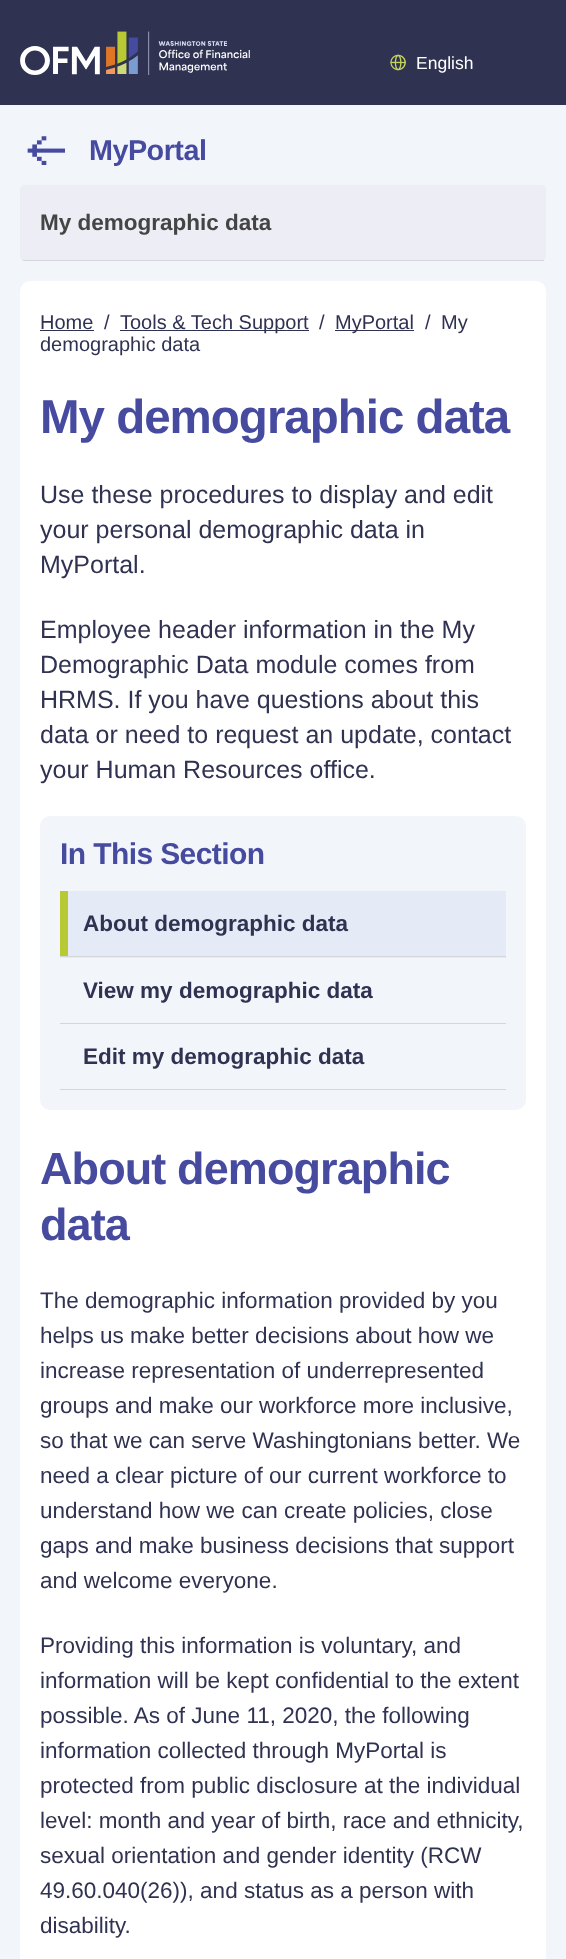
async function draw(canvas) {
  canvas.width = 566
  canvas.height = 1959
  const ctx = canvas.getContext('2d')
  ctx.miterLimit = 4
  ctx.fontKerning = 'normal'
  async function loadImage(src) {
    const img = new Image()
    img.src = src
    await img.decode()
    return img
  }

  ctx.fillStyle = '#f2f5fa'
  ctx.fillRect(0, 0, 566, 1959)
  ctx.fillStyle = '#2f3251'
  ctx.fillRect(0, 0, 566, 105)
  ctx.drawImage(await loadImage('image0.png'), 20, 31, 230, 44)
  ctx.drawImage(await loadImage('image1.png'), 390, 54, 16, 17)
  ctx.font = '17.5px Liberation Sans'
  ctx.fillStyle = '#fff'
  ctx.fillText('English', 416, 69)
  ctx.drawImage(await loadImage('image2.png'), 27, 136, 38, 29)
  ctx.letterSpacing = '-0.5px'
  ctx.font = 'bold 28.75px Liberation Sans'
  ctx.fillStyle = '#464ba0'
  ctx.fillText('MyPortal', 89, 160)
  ctx.fillStyle = '#ecedf5'
  ctx.beginPath()
  ctx.roundRect(20, 185, 526, 76, 5)
  ctx.fill()
  ctx.fillStyle = '#d5d6dc'
  ctx.fillRect(23, 260, 521, 1)
  ctx.letterSpacing = '0px'
  ctx.font = 'bold 22.5px Liberation Sans'
  ctx.fillStyle = '#444'
  ctx.fillText('My demographic data', 40, 230)
  ctx.fillStyle = '#fff'
  ctx.beginPath()
  ctx.roundRect(20, 281, 526, 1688, 10)
  ctx.fill()
  ctx.font = '20px Liberation Sans'
  ctx.fillStyle = '#2f3251'
  ctx.fillText('Home', 40, 329)
  ctx.fillRect(40, 330, 54, 1)
  ctx.fillText('/', 104, 329)
  ctx.fillRect(120, 330, 189, 1)
  ctx.fillText('Tools & Tech Support', 120, 329)
  ctx.fillText('/', 319, 329)
  ctx.fillRect(335, 330, 79, 1)
  ctx.fillText('MyPortal', 335, 329)
  ctx.fillText('/', 425, 329)
  ctx.fillText('My', 441, 329)
  ctx.fillText('demographic data', 40, 351)
  ctx.letterSpacing = '-1px'
  ctx.font = 'bold 47.5px Liberation Sans'
  ctx.fillStyle = '#464ba0'
  ctx.fillText('My demographic data', 40, 433)
  ctx.letterSpacing = '0px'
  ctx.font = '25px Liberation Sans'
  ctx.fillStyle = '#2f3251'
  ctx.fillText('Use these procedures to display and edit', 40, 503)
  ctx.fillText('your personal demographic data in', 40, 538)
  ctx.fillText('MyPortal.', 40, 573)
  ctx.fillText('Employee header information in the My', 40, 638)
  ctx.fillText('Demographic Data module comes from', 40, 673)
  ctx.fillText('HRMS. If you have questions about this', 40, 708)
  ctx.fillText('data or need to request an update, contact', 40, 743)
  ctx.fillText('your Human Resources office.', 40, 778)
  ctx.fillStyle = '#f2f5fa'
  ctx.beginPath()
  ctx.roundRect(40, 816, 486, 294, 10)
  ctx.fill()
  ctx.letterSpacing = '-0.6px'
  ctx.font = 'bold 30px Liberation Sans'
  ctx.fillStyle = '#464ba0'
  ctx.fillText('In This Section', 60, 864)
  ctx.fillStyle = '#e5ebf6'
  ctx.fillRect(60, 891, 446, 67)
  ctx.fillStyle = '#d5d6dc'
  ctx.fillRect(60, 956, 446, 1)
  ctx.fillStyle = '#b7c933'
  ctx.fillRect(60, 891, 8, 65)
  ctx.letterSpacing = '0px'
  ctx.font = 'bold 22.5px Liberation Sans'
  ctx.fillStyle = '#2f3251'
  ctx.fillText('About demographic data', 83, 931)
  ctx.fillStyle = '#d5d6dc'
  ctx.fillRect(60, 1023, 446, 1)
  ctx.fillStyle = '#2f3251'
  ctx.fillText('View my demographic data', 83, 998)
  ctx.fillStyle = '#d5d6dc'
  ctx.fillRect(60, 1089, 446, 1)
  ctx.fillStyle = '#2f3251'
  ctx.fillText('Edit my demographic data', 83, 1064)
  ctx.letterSpacing = '-0.9px'
  ctx.font = 'bold 45px Liberation Sans'
  ctx.fillStyle = '#464ba0'
  ctx.fillText('About demographic', 40, 1184)
  ctx.fillText('data', 40, 1240)
  ctx.letterSpacing = '0px'
  ctx.font = '22.5px Liberation Sans'
  ctx.fillStyle = '#2f3251'
  ctx.fillText('The demographic information provided by you', 40, 1308)
  ctx.fillText('helps us make better decisions about how we', 40, 1343)
  ctx.fillText('increase representation of underrepresented', 40, 1378)
  ctx.fillText('groups and make our workforce more inclusive,', 40, 1413)
  ctx.fillText('so that we can serve Washingtonians better. We', 40, 1448)
  ctx.fillText('need a clear picture of our current workforce to', 40, 1483)
  ctx.fillText('understand how we can create policies, close', 40, 1518)
  ctx.fillText('gaps and make business decisions that support', 40, 1553)
  ctx.fillText('and welcome everyone.', 40, 1588)
  ctx.fillText('Providing this information is voluntary, and', 40, 1653)
  ctx.fillText('information will be kept confidential to the extent', 40, 1688)
  ctx.fillText('possible. As of June 11, 2020, the following', 40, 1723)
  ctx.fillText('information collected through MyPortal is', 40, 1758)
  ctx.fillText('protected from public disclosure at the individual', 40, 1793)
  ctx.fillText('level: month and year of birth, race and ethnicity,', 40, 1828)
  ctx.fillText('sexual orientation and gender identity (RCW', 40, 1863)
  ctx.fillText('49.60.040(26)), and status as a person with', 40, 1898)
  ctx.fillText('disability.', 40, 1933)
}

draw(document.querySelector('canvas'))
